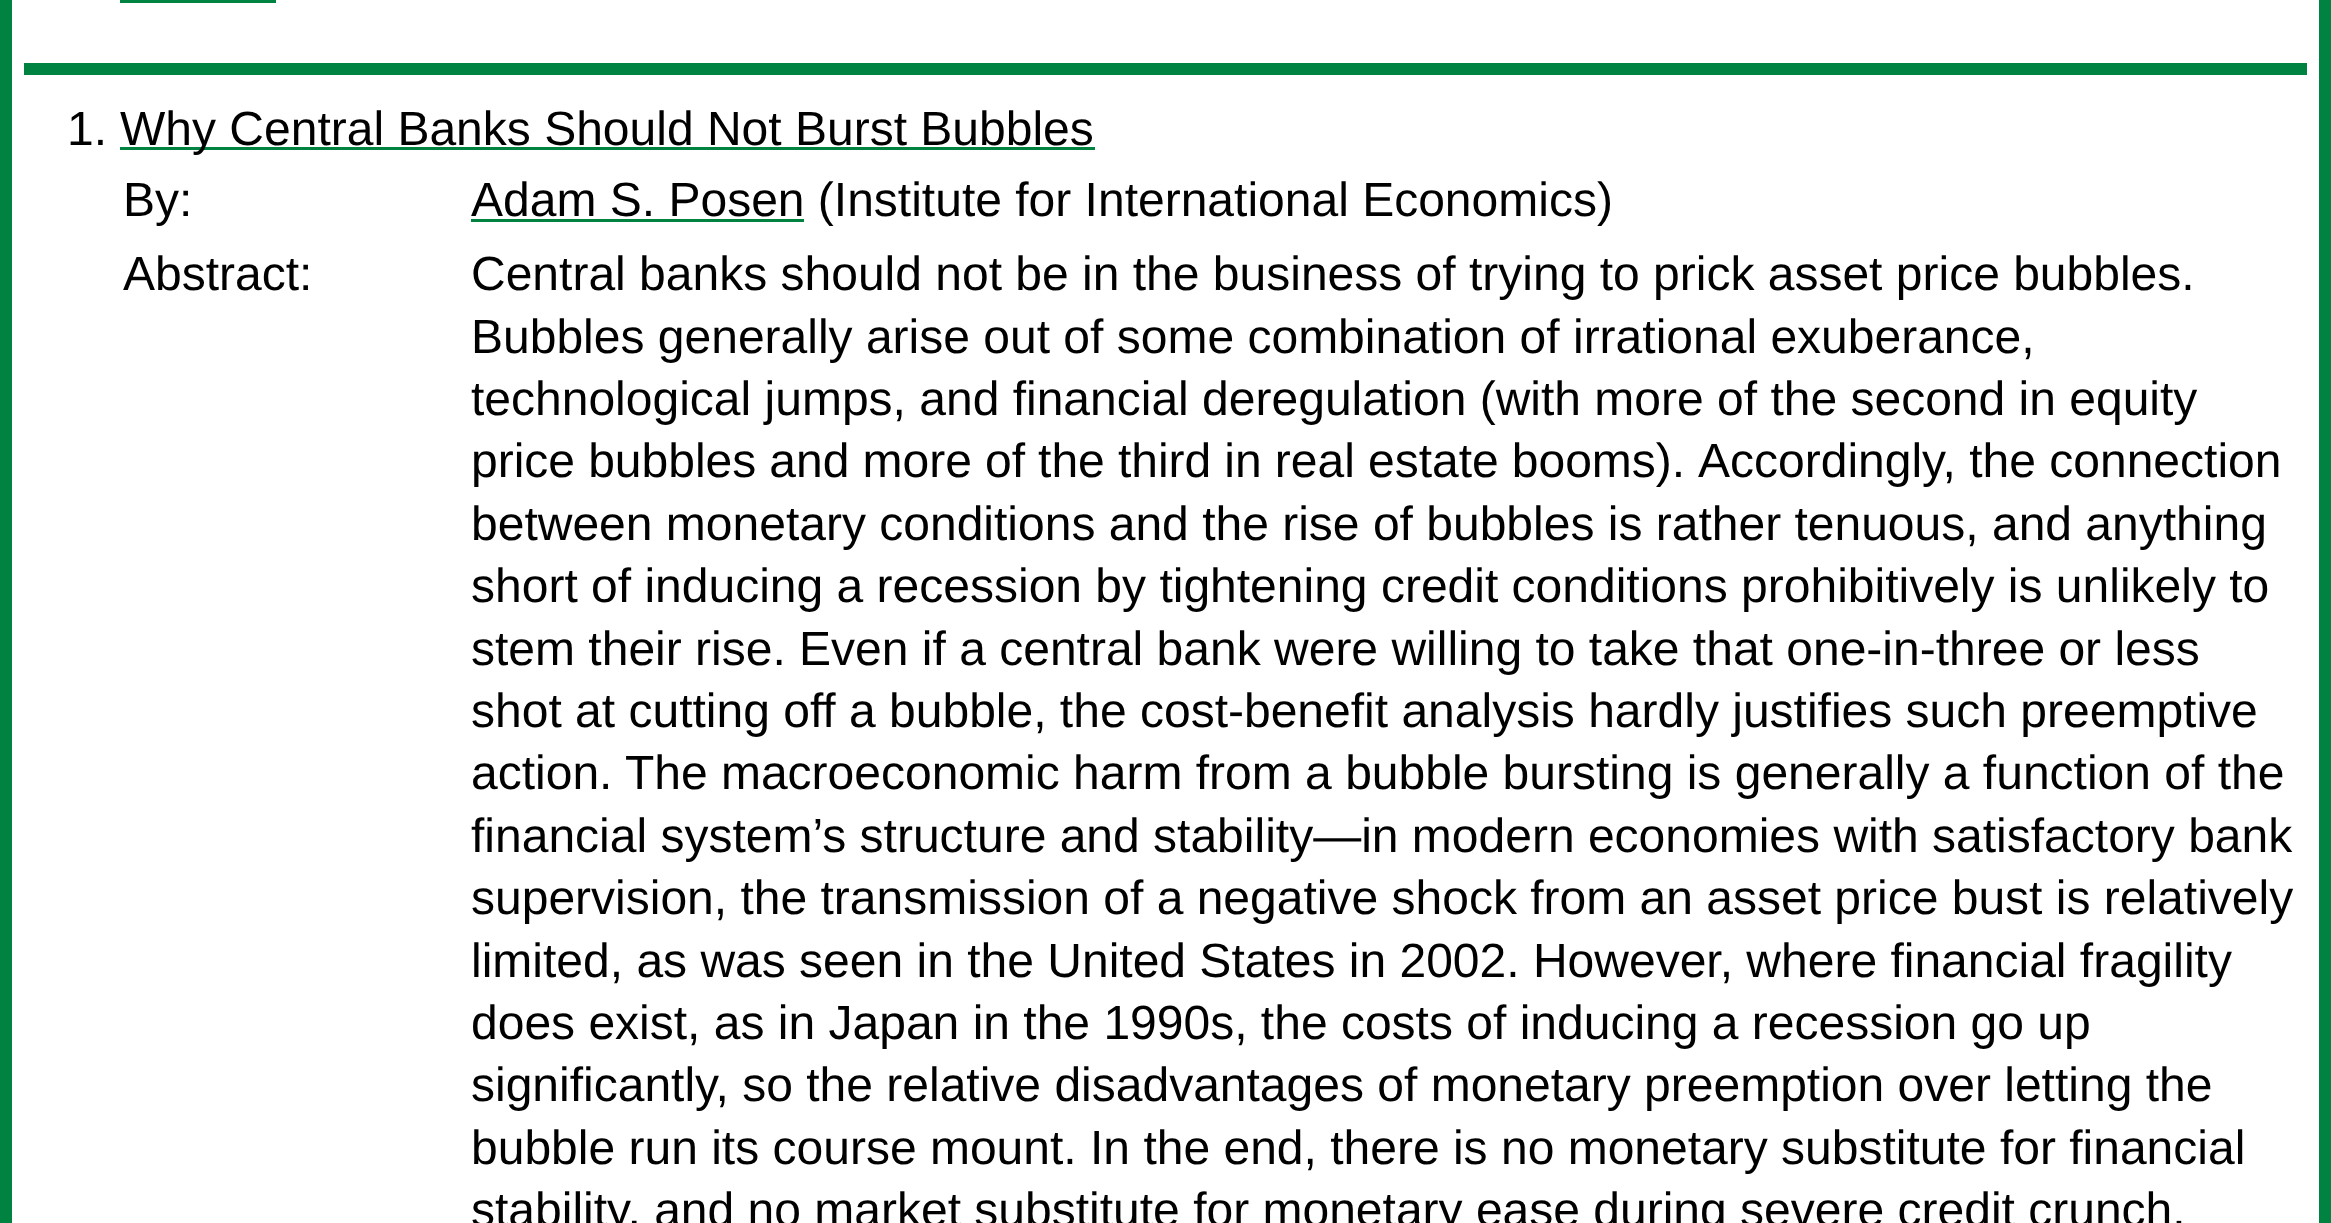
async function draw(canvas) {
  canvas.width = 2331
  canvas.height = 1223
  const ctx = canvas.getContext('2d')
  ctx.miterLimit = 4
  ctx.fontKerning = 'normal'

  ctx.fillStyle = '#fff'
  ctx.fillRect(0, 0, 2331, 1223)
  ctx.strokeStyle = '#008241'
  ctx.lineWidth = 12
  ctx.strokeRect(6, -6, 2319, 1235)
  ctx.fillStyle = '#008241'
  ctx.fillRect(120, 0, 156, 3)
  ctx.fillRect(24, 63, 2283, 12)
  ctx.font = '48px Liberation Sans'
  ctx.fillStyle = '#000'
  ctx.fillText('1.', 67, 145)
  ctx.fillStyle = '#008241'
  ctx.fillRect(120, 147, 975, 3)
  ctx.fillStyle = '#000'
  ctx.fillText('Why Central Banks Should Not Burst Bubbles', 120, 145)
  ctx.fillText('By:', 123, 216)
  ctx.fillStyle = '#008241'
  ctx.fillRect(471, 219, 333, 3)
  ctx.fillStyle = '#000'
  ctx.fillText('Adam S. Posen (Institute for International Economics)', 471, 216)
  ctx.fillText('Abstract:', 123, 290)
  ctx.fillText('Central banks should not be in the business of trying to prick asset price bubbles.', 471, 290)
  ctx.fillText('Bubbles generally arise out of some combination of irrational exuberance,', 471, 353)
  ctx.fillText('technological jumps, and financial deregulation (with more of the second in equity', 471, 415)
  ctx.wordSpacing = '-0.25px'
  ctx.fillText('price bubbles and more of the third in real estate booms).', 471, 477)
  ctx.wordSpacing = '0px'
  ctx.fillText('Accordingly, the connection', 1698, 477)
  ctx.fillText('between monetary conditions and the rise of bubbles is rather tenuous, and anything', 471, 540)
  ctx.fillText('short of inducing a recession by tightening credit conditions prohibitively is unlikely to', 471, 602)
  ctx.fillText('stem their rise. Even if a central bank were willing to take that one-in-three or less', 471, 665)
  ctx.fillText('shot at cutting off a bubble, the cost-benefit analysis hardly justifies such preemptive', 471, 727)
  ctx.fillText('action. The macroeconomic harm from a bubble bursting is generally a function of the', 471, 789)
  ctx.fillText('financial system’s structure and stability—in modern economies with satisfactory bank', 471, 852)
  ctx.fillText('supervision, the transmission of a negative shock from an asset price bust is relatively', 471, 914)
  ctx.fillText('limited, as was seen in the United States in 2002. However, where financial fragility', 471, 977)
  ctx.fillText('does exist, as in Japan in the 1990s, the costs of inducing a recession go up', 471, 1039)
  ctx.fillText('significantly, so the relative disadvantages of monetary preemption over letting the', 471, 1101)
  ctx.fillText('bubble run its course mount. In the end, there is no monetary substitute for financial', 471, 1164)
  ctx.fillText('stability, and no market substitute for monetary ease during severe credit crunch.', 471, 1226)
}

draw(document.querySelector('canvas'))
